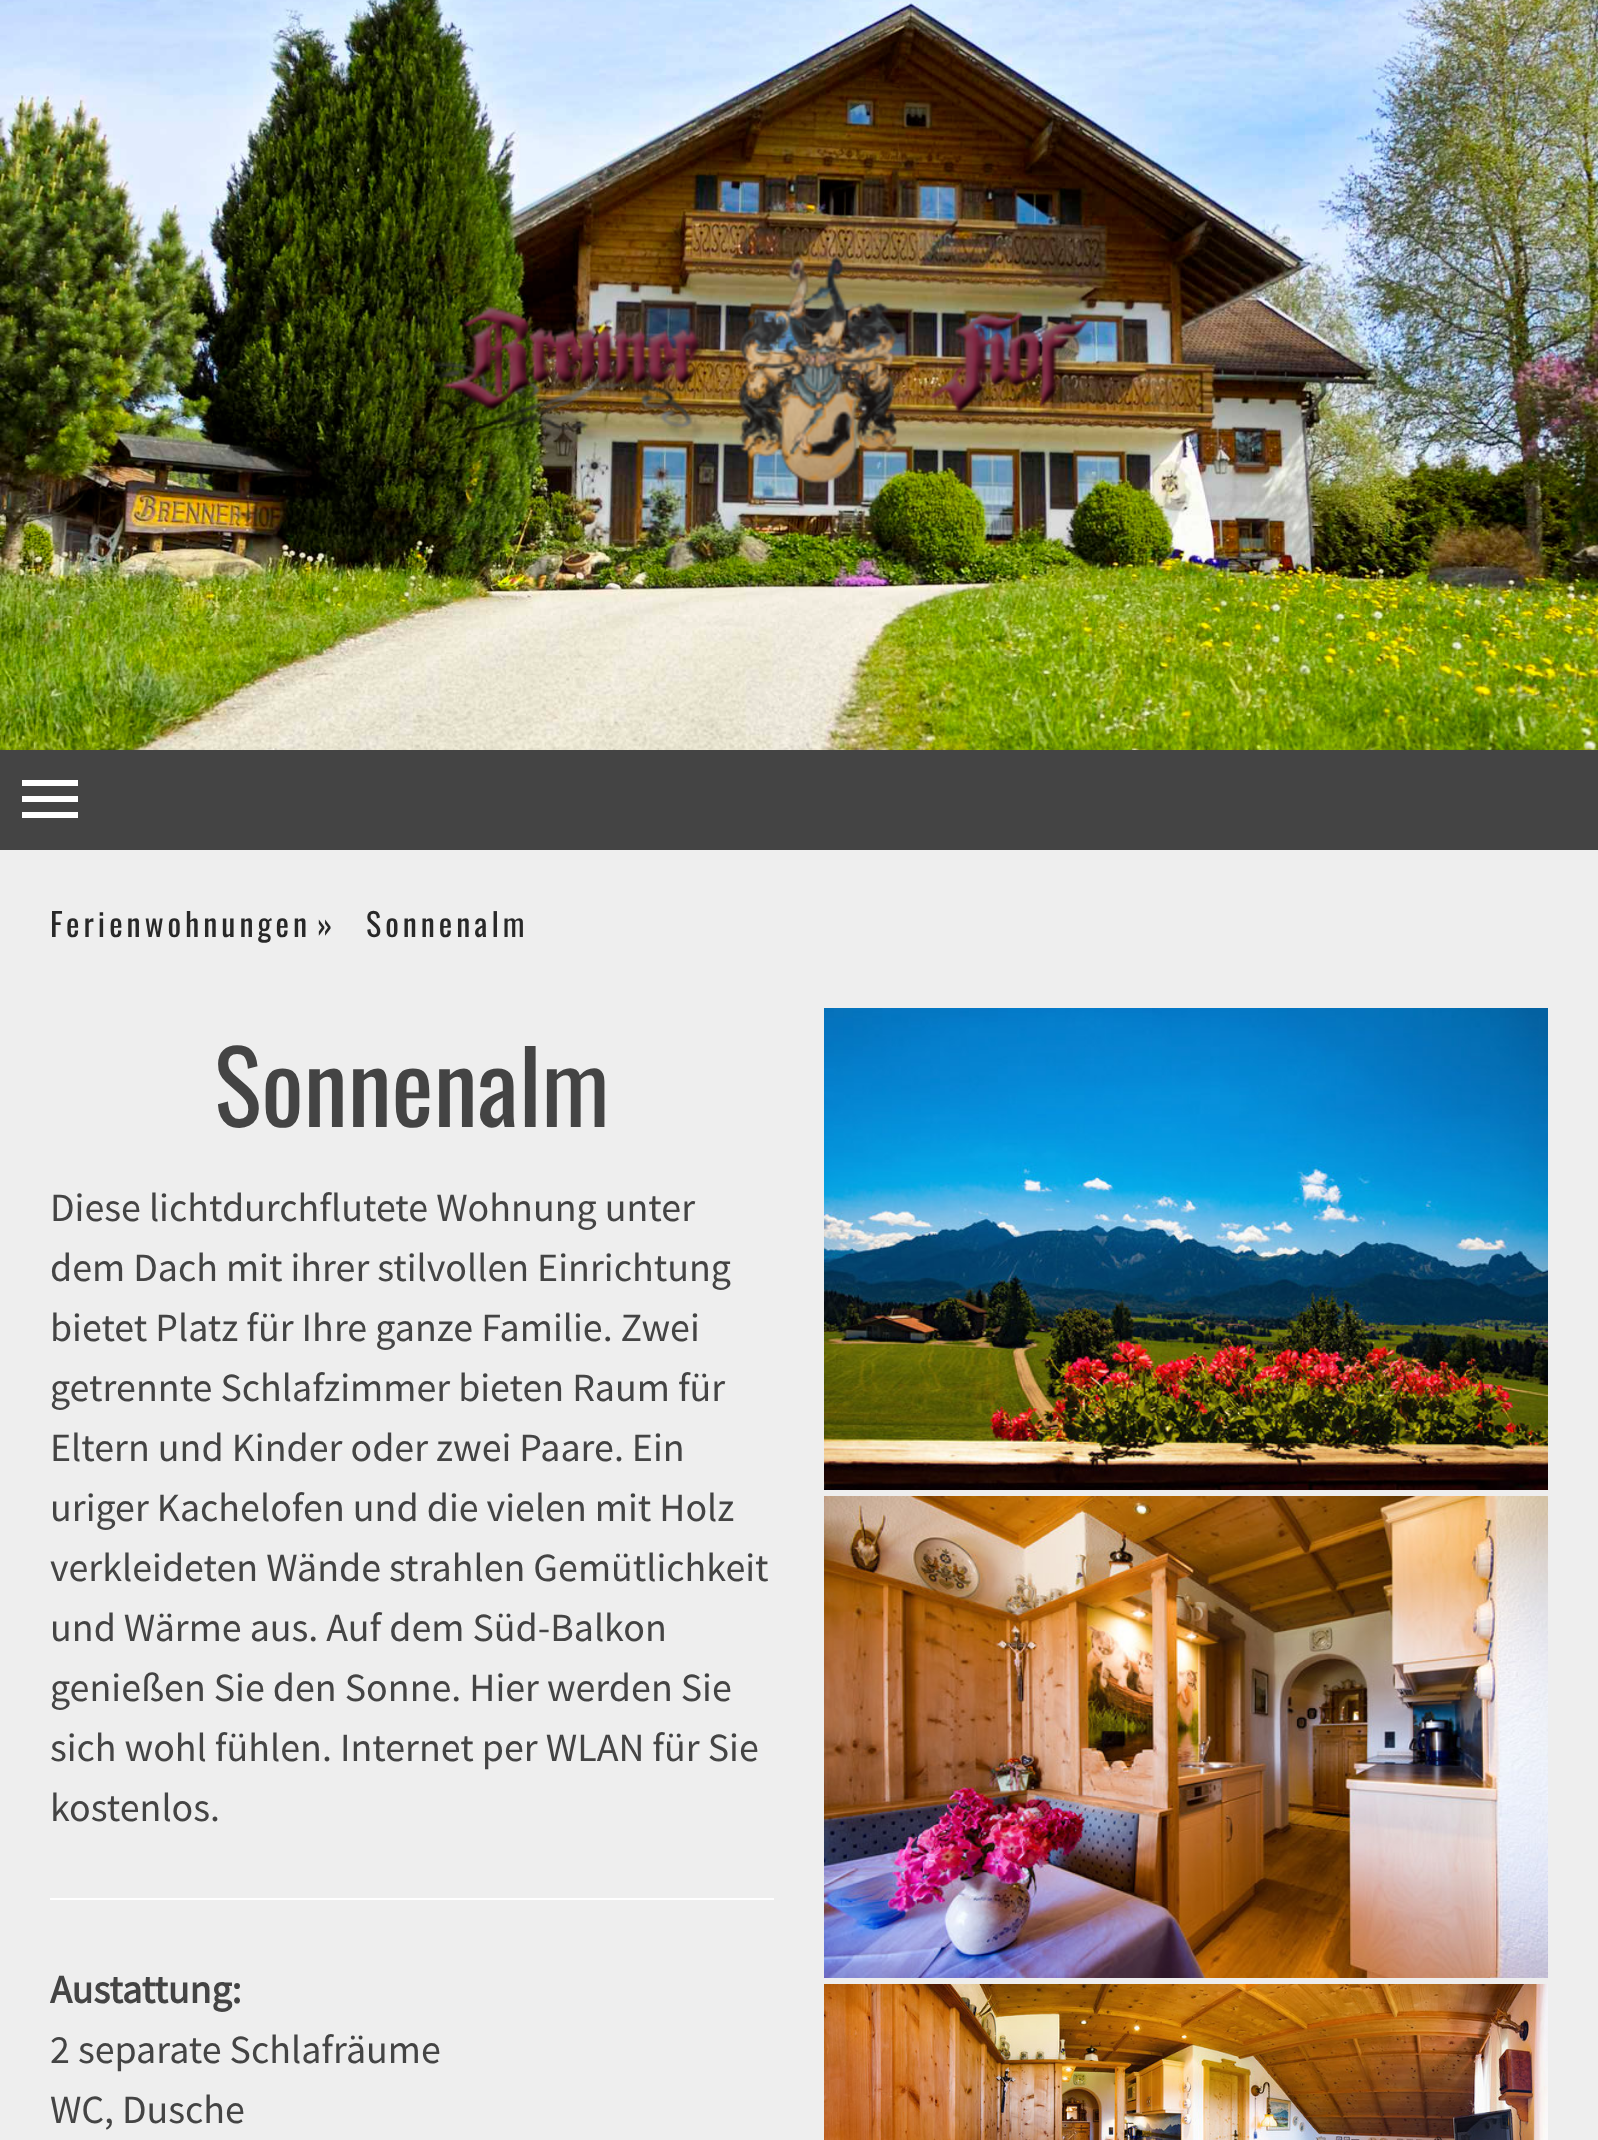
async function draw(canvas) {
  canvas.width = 1598
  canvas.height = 2140
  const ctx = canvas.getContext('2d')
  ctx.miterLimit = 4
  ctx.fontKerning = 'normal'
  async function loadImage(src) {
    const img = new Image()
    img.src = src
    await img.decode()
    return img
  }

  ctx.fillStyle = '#fff'
  ctx.fillRect(0, 0, 1598, 2140)
  ctx.drawImage(await loadImage('image0.png'), 0, 0, 1598, 750)
  ctx.drawImage(await loadImage('image1.png'), 432, 256, 667, 228)
  ctx.fillStyle = '#444'
  ctx.fillRect(0, 750, 1598, 100)
  ctx.fillStyle = '#fff'
  ctx.fillRect(22, 796, 56, 6)
  ctx.fillRect(22, 780, 56, 6)
  ctx.fillRect(22, 812, 56, 6)
  ctx.fillStyle = '#eee'
  ctx.fillRect(0, 850, 1598, 1290)
  ctx.letterSpacing = '4px'
  ctx.font = '32px Oswald'
  ctx.fillStyle = '#282828'
  ctx.fillText('Ferienwohnungen', 50, 937)
  ctx.fillText('»', 317, 937)
  ctx.fillText('Sonnenalm', 366, 937)
  ctx.letterSpacing = '0px'
  ctx.font = '100px Oswald'
  ctx.fillStyle = '#444'
  ctx.fillText('Sonnenalm', 214, 1127)
  ctx.font = '40px Source Sans Pro'
  ctx.fillText('Diese lichtdurchflutete Wohnung unter', 50, 1221)
  ctx.fillText('dem Dach mit ihrer stilvollen Einrichtung', 50, 1281)
  ctx.fillText('bietet Platz für Ihre ganze Familie. Zwei', 50, 1341)
  ctx.fillText('getrennte Schlafzimmer bieten Raum für', 50, 1401)
  ctx.fillText('Eltern und Kinder oder zwei Paare. Ein', 50, 1461)
  ctx.fillText('uriger Kachelofen und die vielen mit Holz', 50, 1521)
  ctx.fillText('verkleideten Wände strahlen Gemütlichkeit', 50, 1581)
  ctx.fillText('und Wärme aus. Auf dem Süd-Balkon', 50, 1641)
  ctx.fillText('genießen Sie den Sonne. Hier werden Sie', 50, 1701)
  ctx.fillText('sich wohl fühlen. Internet per WLAN für Sie', 50, 1761)
  ctx.fillText('kostenlos.', 50, 1821)
  ctx.fillStyle = '#fff'
  ctx.fillRect(50, 1898, 724, 2)
  ctx.font = 'bold 40px Source Sans Pro'
  ctx.fillStyle = '#444'
  ctx.fillText('Austattung:', 50, 2003)
  ctx.font = '40px Source Sans Pro'
  ctx.fillText('2 separate Schlafräume', 50, 2063)
  ctx.fillText('WC, Dusche', 50, 2123)
  ctx.drawImage(await loadImage('image2.png'), 824, 1008, 724, 482)
  ctx.drawImage(await loadImage('image3.png'), 824, 1496, 724, 482)
  ctx.drawImage(await loadImage('image4.png'), 824, 1984, 724, 156)
}

draw(document.querySelector('canvas'))
